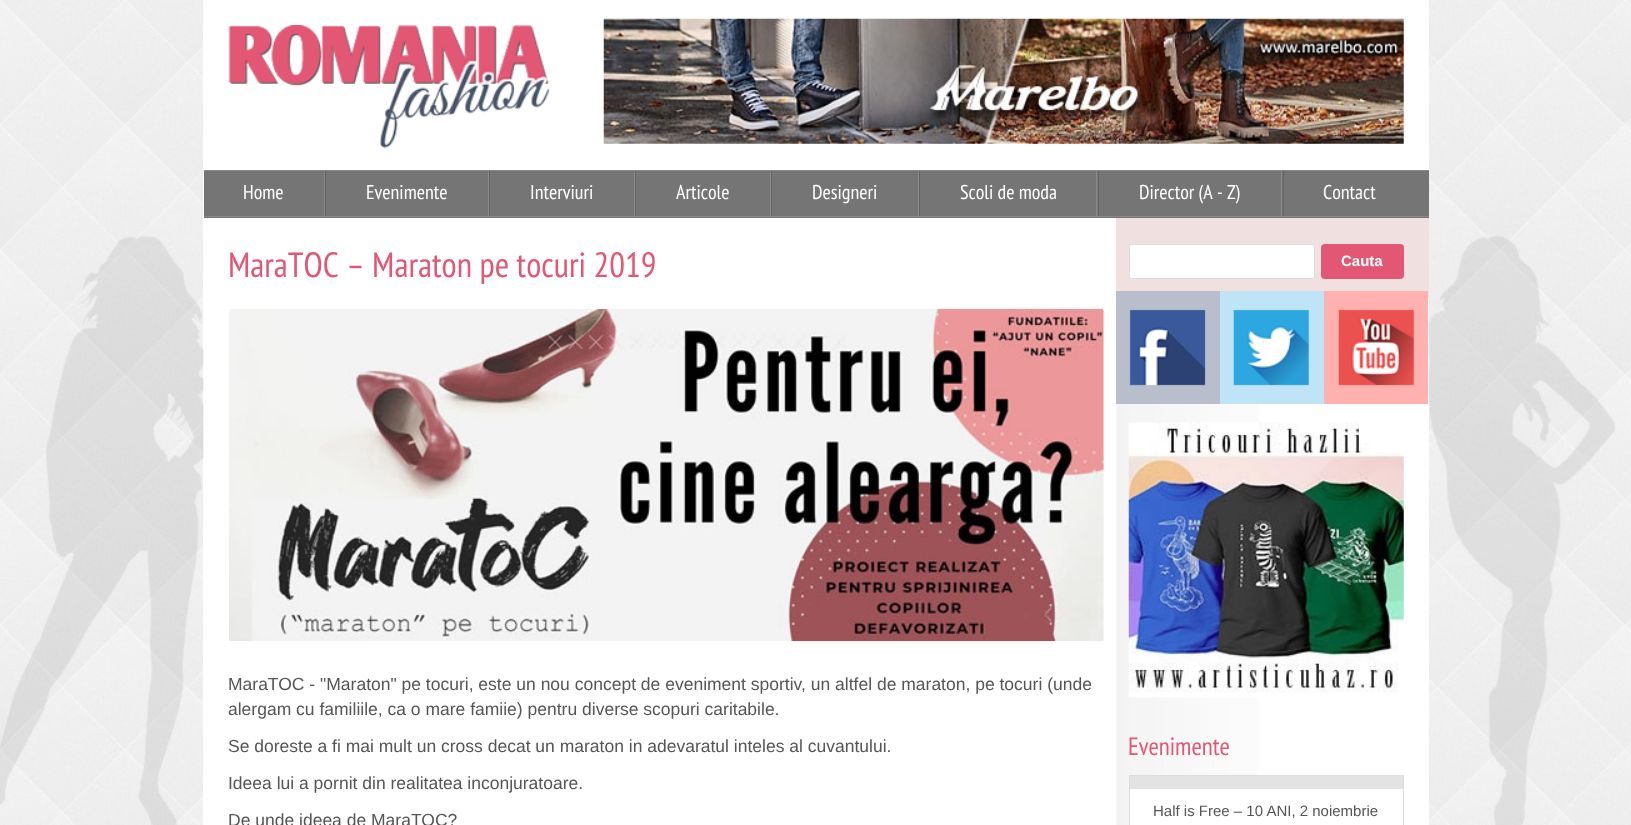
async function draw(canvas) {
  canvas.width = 1631
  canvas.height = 825
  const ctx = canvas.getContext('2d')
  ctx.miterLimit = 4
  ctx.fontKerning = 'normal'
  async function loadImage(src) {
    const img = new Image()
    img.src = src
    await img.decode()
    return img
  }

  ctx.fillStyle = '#fff'
  ctx.fillRect(0, 0, 1631, 825)
  ctx.drawImage(await loadImage('image0.png'), 0, 0, 1631, 825)
  ctx.fillRect(203, 0, 1226, 825)
  ctx.drawImage(await loadImage('image9.png'), 0, 235, 1615, 590)
  ctx.drawImage(await loadImage('image1.png'), 1116, 404, 143, 421)
  ctx.drawImage(await loadImage('image2.png'), 228, 25, 322, 124)
  ctx.drawImage(await loadImage('image3.png'), 603, 18, 801, 126)
  ctx.fillStyle = '#757575'
  ctx.fillRect(204, 171, 1225, 47)
  ctx.fillStyle = '#888'
  ctx.fillRect(204, 170, 1225, 1)
  ctx.fillRect(204, 216, 1225, 1)
  ctx.fillStyle = '#8a8a8a'
  ctx.fillRect(324, 171, 1, 45)
  ctx.font = '20px PT Sans Narrow'
  ctx.fillStyle = '#fff'
  ctx.fillText('Home', 243, 199)
  ctx.fillStyle = '#8a8a8a'
  ctx.fillRect(488, 171, 1, 45)
  ctx.fillStyle = '#626262'
  ctx.fillRect(325, 171, 1, 45)
  ctx.fillStyle = '#fff'
  ctx.fillText('Evenimente', 366, 199)
  ctx.fillStyle = '#8a8a8a'
  ctx.fillRect(634, 171, 1, 45)
  ctx.fillStyle = '#626262'
  ctx.fillRect(489, 171, 1, 45)
  ctx.fillStyle = '#fff'
  ctx.fillText('Interviuri', 530, 199)
  ctx.fillStyle = '#8a8a8a'
  ctx.fillRect(770, 171, 1, 45)
  ctx.fillStyle = '#626262'
  ctx.fillRect(635, 171, 1, 45)
  ctx.fillStyle = '#fff'
  ctx.fillText('Articole', 676, 199)
  ctx.fillStyle = '#8a8a8a'
  ctx.fillRect(918, 171, 1, 45)
  ctx.fillStyle = '#626262'
  ctx.fillRect(771, 171, 1, 45)
  ctx.fillStyle = '#fff'
  ctx.fillText('Designeri', 812, 199)
  ctx.fillStyle = '#8a8a8a'
  ctx.fillRect(1096, 171, 1, 45)
  ctx.fillStyle = '#626262'
  ctx.fillRect(919, 171, 1, 45)
  ctx.fillStyle = '#fff'
  ctx.fillText('Scoli de moda', 960, 199)
  ctx.fillStyle = '#8a8a8a'
  ctx.fillRect(1281, 171, 1, 45)
  ctx.fillStyle = '#626262'
  ctx.fillRect(1098, 171, 1, 45)
  ctx.fillStyle = '#fff'
  ctx.fillText('Director (A - Z)', 1139, 199)
  ctx.fillStyle = '#626262'
  ctx.fillRect(1283, 171, 1, 45)
  ctx.fillStyle = '#fff'
  ctx.fillText('Contact', 1323, 199)
  ctx.font = '35px PT Sans Narrow'
  ctx.fillStyle = '#e25774'
  ctx.fillText('MaraTOC – Maraton pe tocuri 2019', 228, 277)
  ctx.drawImage(await loadImage('image4.png'), 229, 308, 875, 334)
  ctx.font = '17.5px Liberation Sans'
  ctx.fillStyle = '#555'
  ctx.fillText('MaraTOC - "Maraton" pe tocuri, este un nou concept de eveniment sportiv, un altfel de maraton, pe tocuri (unde', 228, 690)
  ctx.fillText('alergam cu familiile, ca o mare famiie) pentru diverse scopuri caritabile.', 228, 715)
  ctx.fillText('Se doreste a fi mai mult un cross decat un maraton in adevaratul inteles al cuvantului.', 228, 752)
  ctx.fillText('Ideea lui a pornit din realitatea inconjuratoare.', 228, 789)
  ctx.fillText('De unde ideea de MaraTOC?', 228, 826)
  ctx.fillStyle = '#f0e0e0'
  ctx.fillRect(1116, 218, 313, 80)
  ctx.fillStyle = '#fff'
  ctx.beginPath()
  ctx.roundRect(1129.5, 244.5, 185, 34, 2)
  ctx.fill()
  ctx.strokeStyle = '#ddd'
  ctx.stroke()
  ctx.fillStyle = '#e25774'
  ctx.beginPath()
  ctx.roundRect(1321, 244, 83, 35, 4)
  ctx.fill()
  ctx.font = 'bold 15px Liberation Sans'
  ctx.fillStyle = '#fff'
  ctx.fillText('Cauta', 1341, 266)
  ctx.fillStyle = '#b8becb'
  ctx.fillRect(1116, 291, 104, 113)
  ctx.drawImage(await loadImage('image5.png'), 1129, 309, 77, 77)
  ctx.fillStyle = '#bfe4f6'
  ctx.fillRect(1220, 291, 104, 113)
  ctx.drawImage(await loadImage('image6.png'), 1233, 309, 76, 77)
  ctx.fillStyle = '#ffb1af'
  ctx.fillRect(1324, 291, 104, 113)
  ctx.drawImage(await loadImage('image7.png'), 1338, 309, 76, 77)
  ctx.drawImage(await loadImage('image8.png'), 1128, 422, 276, 276)
  ctx.font = '25px PT Sans Narrow'
  ctx.fillStyle = '#e25774'
  ctx.fillText('Evenimente', 1128, 755)
  ctx.strokeRect(1129.5, 775.5, 274, 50)
  ctx.fillStyle = '#fff'
  ctx.fillRect(1130, 789, 129, 36)
  ctx.fillStyle = '#e3e3e3'
  ctx.fillRect(1130, 776, 273, 13)
  ctx.font = '15px Liberation Sans'
  ctx.fillStyle = '#555'
  ctx.fillText('Half is Free – 10 ANI, 2 noiembrie', 1153, 816)
}

draw(document.querySelector('canvas'))
